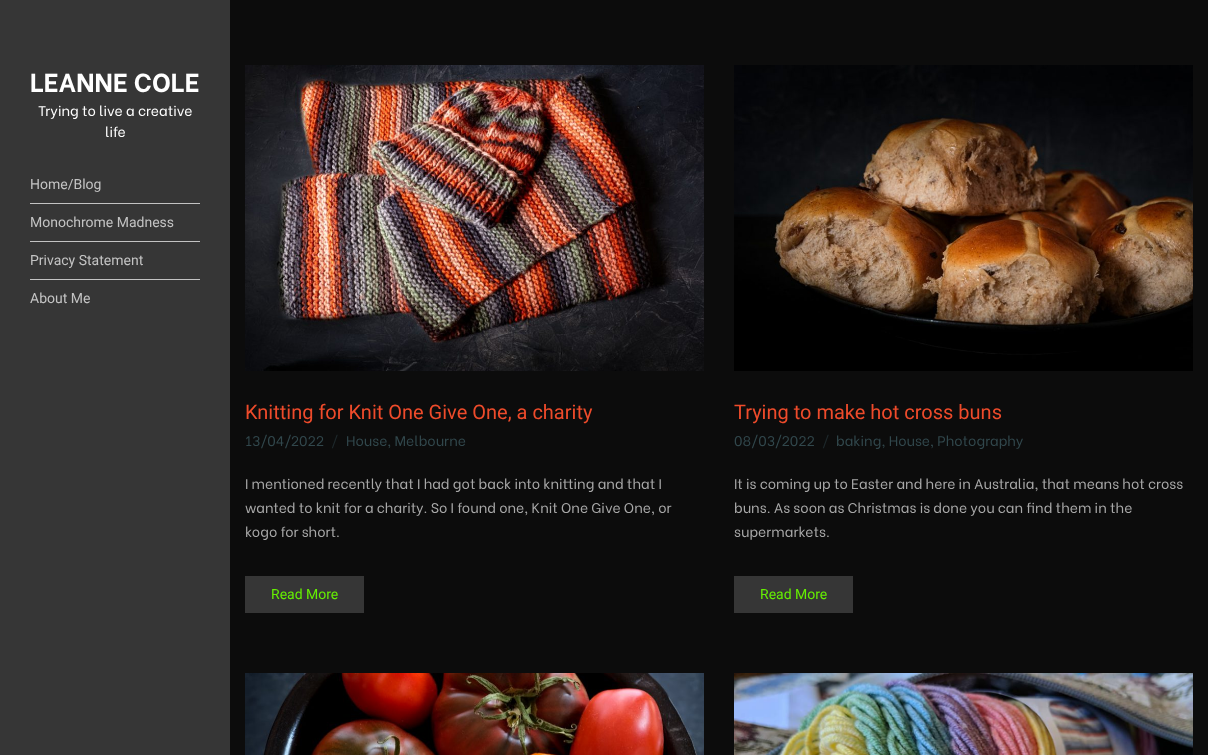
async function draw(canvas) {
  canvas.width = 1208
  canvas.height = 755
  const ctx = canvas.getContext('2d')
  ctx.miterLimit = 4
  ctx.fontKerning = 'normal'
  async function loadImage(src) {
    const img = new Image()
    img.src = src
    await img.decode()
    return img
  }

  ctx.fillStyle = '#0c0c0c'
  ctx.fillRect(0, 0, 1208, 755)
  ctx.fillStyle = '#363636'
  ctx.fillRect(0, 0, 230, 755)
  ctx.font = 'bold 26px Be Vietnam'
  ctx.fillStyle = '#fff'
  ctx.fillText('LEANNE COLE', 30, 92)
  ctx.font = '14px Be Vietnam'
  ctx.fillText('Trying to live a creative', 38, 116)
  ctx.fillText('life', 105, 137)
  ctx.fillStyle = '#c3c3c3'
  ctx.fillRect(30, 203, 170, 1)
  ctx.font = '14px Roboto'
  ctx.fillText('Home/Blog', 30, 189)
  ctx.fillRect(30, 241, 170, 1)
  ctx.fillText('Monochrome Madness', 30, 227)
  ctx.fillRect(30, 279, 170, 1)
  ctx.fillText('Privacy Statement', 30, 265)
  ctx.fillText('About Me', 30, 303)
  ctx.drawImage(await loadImage('image0.png'), 245, 65, 459, 306)
  ctx.font = '20px Roboto'
  ctx.fillStyle = '#ee4b2b'
  ctx.fillText('Knitting for Knit One Give One, a charity', 245, 419)
  ctx.font = '14px Be Vietnam'
  ctx.fillStyle = '#31474c'
  ctx.fillText('13/04/2022', 245, 446)
  ctx.fillStyle = '#1e292c'
  ctx.fillText('/', 331, 446)
  ctx.fillStyle = '#31474c'
  ctx.fillText('House, Melbourne', 346, 446)
  ctx.fillStyle = '#a8a8a8'
  ctx.fillText('I mentioned recently that I had got back into knitting and that I', 245, 489)
  ctx.fillText('wanted to knit for a charity. So I found one, Knit One Give One, or', 245, 513)
  ctx.fillText('kogo for short.', 245, 537)
  ctx.fillStyle = '#363636'
  ctx.fillRect(245, 576, 119, 37)
  ctx.font = '14px Roboto'
  ctx.fillStyle = '#65ef02'
  ctx.fillText('Read More', 271, 599)
  ctx.drawImage(await loadImage('image1.png'), 734, 65, 459, 306)
  ctx.font = '20px Roboto'
  ctx.fillStyle = '#ee4b2b'
  ctx.fillText('Trying to make hot cross buns', 734, 419)
  ctx.font = '14px Be Vietnam'
  ctx.fillStyle = '#31474c'
  ctx.fillText('08/03/2022', 734, 446)
  ctx.fillStyle = '#1e292c'
  ctx.fillText('/', 822, 446)
  ctx.fillStyle = '#31474c'
  ctx.fillText('baking, House, Photography', 836, 446)
  ctx.fillStyle = '#a8a8a8'
  ctx.fillText('It is coming up to Easter and here in Australia, that means hot cross', 734, 489)
  ctx.fillText('buns. As soon as Christmas is done you can find them in the', 734, 513)
  ctx.fillText('supermarkets.', 734, 537)
  ctx.fillStyle = '#363636'
  ctx.fillRect(734, 576, 119, 37)
  ctx.font = '14px Roboto'
  ctx.fillStyle = '#65ef02'
  ctx.fillText('Read More', 760, 599)
  ctx.drawImage(await loadImage('image2.png'), 245, 673, 459, 82)
  ctx.drawImage(await loadImage('image3.png'), 734, 673, 459, 82)
}

draw(document.querySelector('canvas'))
